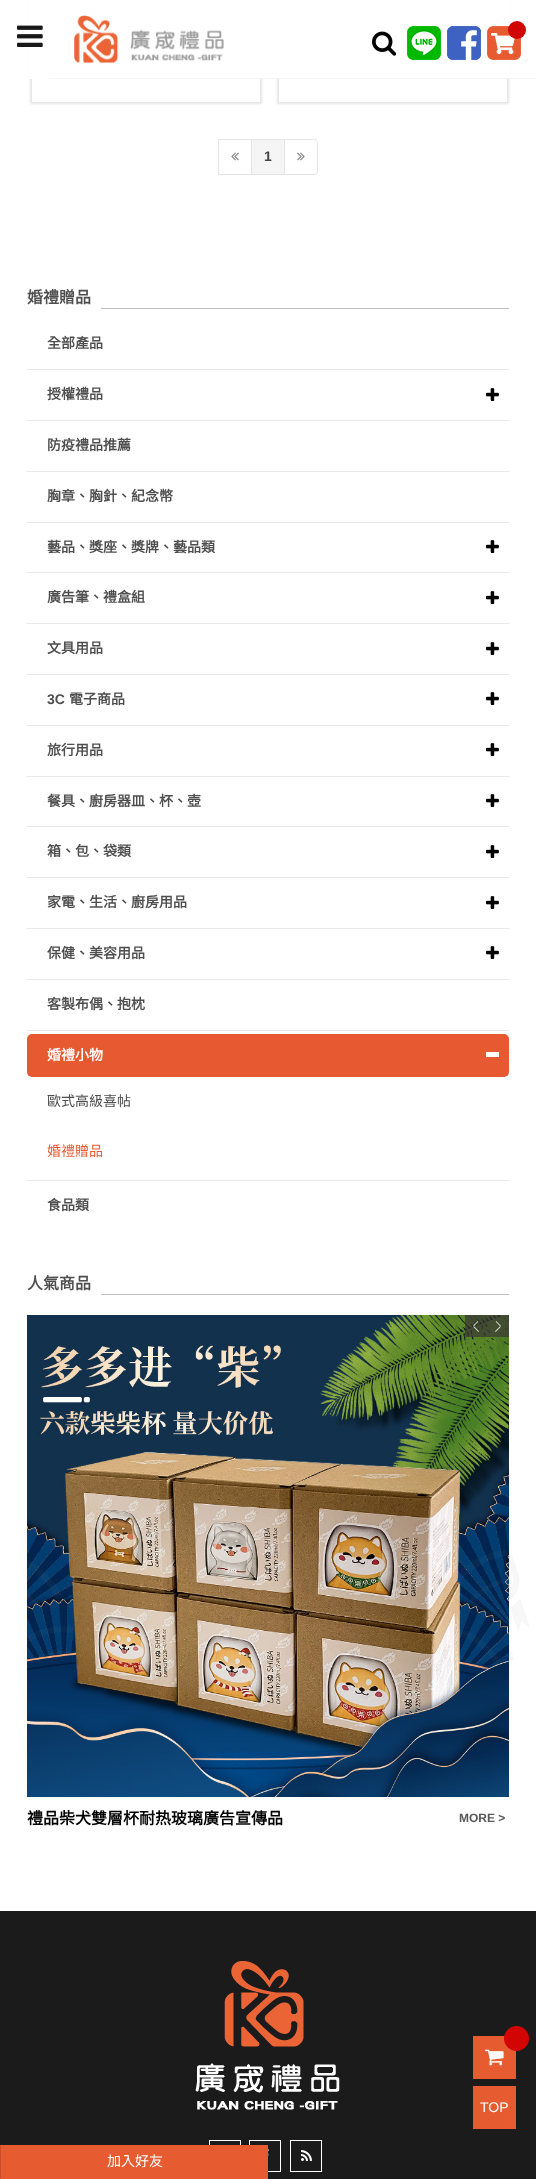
async function draw(canvas) {
  canvas.width = 536
  canvas.height = 2179
  const ctx = canvas.getContext('2d')
  ctx.miterLimit = 4
  ctx.fontKerning = 'normal'
  async function loadImage(src) {
    const img = new Image()
    img.src = src
    await img.decode()
    return img
  }

  ctx.fillStyle = '#fff'
  ctx.fillRect(0, 0, 536, 2179)
  ctx.save()
  ctx.beginPath()
  ctx.moveTo(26, 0)
  ctx.lineTo(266, 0)
  ctx.lineTo(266, 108)
  ctx.lineTo(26, 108)
  ctx.closePath()
  ctx.moveTo(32, -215)
  ctx.lineTo(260, -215)
  ctx.lineTo(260, 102)
  ctx.lineTo(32, 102)
  ctx.closePath()
  ctx.clip('evenodd')
  ctx.fillStyle = '#0000001a'
  ctx.filter = 'blur(1px)'
  ctx.beginPath()
  ctx.rect(30, -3, 232, 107)
  ctx.fill()
  ctx.filter = 'none'
  ctx.restore()
  ctx.save()
  ctx.beginPath()
  ctx.moveTo(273, 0)
  ctx.lineTo(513, 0)
  ctx.lineTo(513, 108)
  ctx.lineTo(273, 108)
  ctx.closePath()
  ctx.moveTo(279, -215)
  ctx.lineTo(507, -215)
  ctx.lineTo(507, 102)
  ctx.lineTo(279, 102)
  ctx.closePath()
  ctx.clip('evenodd')
  ctx.fillStyle = '#0000001a'
  ctx.filter = 'blur(1px)'
  ctx.beginPath()
  ctx.rect(277, -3, 232, 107)
  ctx.fill()
  ctx.filter = 'none'
  ctx.restore()
  ctx.fillRect(29, 0, 481, 79)
  ctx.drawImage(await loadImage('image0.png'), 17, 25, 26, 22)
  ctx.fillStyle = '#f5f3f3'
  ctx.fillRect(50, 78, 486, 1)
  ctx.drawImage(await loadImage('image1.png'), 74, 15, 150, 48)
  ctx.drawImage(await loadImage('image2.png'), 372, 31, 25, 25)
  ctx.drawImage(await loadImage('image3.png'), 407, 26, 34, 34)
  ctx.drawImage(await loadImage('image4.png'), 447, 26, 34, 34)
  ctx.drawImage(await loadImage('image5.png'), 487, 26, 34, 34)
  ctx.fillStyle = '#d20404'
  ctx.beginPath()
  ctx.arc(517, 30, 9, 0, 2 * Math.PI)
  ctx.fill()
  ctx.drawImage(await loadImage('image6.png'), 509, 1554, 21, 210)
  ctx.fillStyle = '#e5e5e5'
  ctx.fillRect(218, 139, 66, 1)
  ctx.fillRect(218, 174, 66, 1)
  ctx.fillRect(218, 139, 1, 36)
  ctx.drawImage(await loadImage('image7.png'), 231, 152, 8, 9)
  ctx.beginPath()
  ctx.roundRect(284.5, 139.5, 33, 35, [0, 3.5, 3.5, 0])
  ctx.strokeStyle = '#e5e5e5'
  ctx.stroke()
  ctx.drawImage(await loadImage('image8.png'), 297, 152, 8, 9)
  ctx.fillStyle = '#f5f5f5'
  ctx.fillRect(252, 140, 32, 34)
  ctx.fillStyle = '#e5e5e5'
  ctx.fillRect(251, 139, 1, 36)
  ctx.font = 'bold 14px Liberation Sans'
  ctx.fillStyle = '#444'
  ctx.fillText('1', 264, 161)
  ctx.font = 'bold 16px Noto Sans CJK TC'
  ctx.fillStyle = '#4e4e4e'
  ctx.fillText('婚禮贈品', 27, 303)
  ctx.fillStyle = '#c0c0c0'
  ctx.fillRect(101, 308, 408, 1)
  ctx.fillStyle = '#e9e9e9'
  ctx.fillRect(27, 369, 482, 1)
  ctx.font = 'bold 14px Noto Sans CJK TC'
  ctx.fillStyle = '#4e4e4e'
  ctx.fillText('全部產品', 47, 348)
  ctx.fillStyle = '#e9e9e9'
  ctx.fillRect(27, 420, 482, 1)
  ctx.fillStyle = '#4e4e4e'
  ctx.fillText('授權禮品', 47, 399)
  ctx.drawImage(await loadImage('image9.png'), 486, 388, 13, 13)
  ctx.fillStyle = '#e9e9e9'
  ctx.fillRect(27, 471, 482, 1)
  ctx.fillStyle = '#4e4e4e'
  ctx.fillText('防疫禮品推薦', 47, 450)
  ctx.fillStyle = '#e9e9e9'
  ctx.fillRect(27, 522, 482, 1)
  ctx.fillStyle = '#4e4e4e'
  ctx.fillText('胸章、胸針、紀念幣', 47, 501)
  ctx.fillStyle = '#e9e9e9'
  ctx.fillRect(27, 572, 482, 1)
  ctx.fillStyle = '#4e4e4e'
  ctx.fillText('藝品、獎座、獎牌、藝品類', 47, 552)
  ctx.drawImage(await loadImage('image9.png'), 486, 540, 13, 13)
  ctx.fillStyle = '#e9e9e9'
  ctx.fillRect(27, 623, 482, 1)
  ctx.fillStyle = '#4e4e4e'
  ctx.fillText('廣告筆、禮盒組', 47, 602)
  ctx.drawImage(await loadImage('image9.png'), 486, 591, 13, 13)
  ctx.fillStyle = '#e9e9e9'
  ctx.fillRect(27, 674, 482, 1)
  ctx.fillStyle = '#4e4e4e'
  ctx.fillText('文具用品', 47, 653)
  ctx.drawImage(await loadImage('image9.png'), 486, 642, 13, 13)
  ctx.fillStyle = '#e9e9e9'
  ctx.fillRect(27, 725, 482, 1)
  ctx.font = 'bold 14px Liberation Sans'
  ctx.fillStyle = '#4e4e4e'
  ctx.fillText('3C', 47, 704)
  ctx.font = 'bold 14px Noto Sans CJK TC'
  ctx.fillText('電子商品', 69, 704)
  ctx.drawImage(await loadImage('image9.png'), 486, 692, 13, 13)
  ctx.fillStyle = '#e9e9e9'
  ctx.fillRect(27, 776, 482, 1)
  ctx.fillStyle = '#4e4e4e'
  ctx.fillText('旅行用品', 47, 755)
  ctx.drawImage(await loadImage('image9.png'), 486, 743, 13, 13)
  ctx.fillStyle = '#e9e9e9'
  ctx.fillRect(27, 826, 482, 1)
  ctx.fillStyle = '#4e4e4e'
  ctx.fillText('餐具、廚房器皿、杯、壺', 47, 806)
  ctx.drawImage(await loadImage('image9.png'), 486, 794, 13, 13)
  ctx.fillStyle = '#e9e9e9'
  ctx.fillRect(27, 877, 482, 1)
  ctx.fillStyle = '#4e4e4e'
  ctx.fillText('箱、包、袋類', 47, 856)
  ctx.drawImage(await loadImage('image9.png'), 486, 845, 13, 13)
  ctx.fillStyle = '#e9e9e9'
  ctx.fillRect(27, 928, 482, 1)
  ctx.fillStyle = '#4e4e4e'
  ctx.fillText('家電、生活、廚房用品', 47, 907)
  ctx.drawImage(await loadImage('image9.png'), 486, 896, 13, 13)
  ctx.fillStyle = '#e9e9e9'
  ctx.fillRect(27, 979, 482, 1)
  ctx.fillStyle = '#4e4e4e'
  ctx.fillText('保健、美容用品', 47, 958)
  ctx.drawImage(await loadImage('image9.png'), 486, 946, 13, 13)
  ctx.fillStyle = '#e9e9e9'
  ctx.fillRect(27, 1030, 482, 1)
  ctx.fillStyle = '#4e4e4e'
  ctx.fillText('客製布偶、抱枕', 47, 1009)
  ctx.fillStyle = '#e9e9e9'
  ctx.fillRect(27, 1180, 482, 1)
  ctx.fillStyle = '#e75a31'
  ctx.beginPath()
  ctx.roundRect(27, 1034, 482, 43, 5)
  ctx.fill()
  ctx.fillStyle = '#fff'
  ctx.fillText('婚禮小物', 47, 1060)
  ctx.fillRect(486, 1052, 13, 5)
  ctx.font = '14px Noto Sans CJK TC'
  ctx.fillStyle = '#4e4e4e'
  ctx.fillText('歐式高級喜帖', 47, 1106)
  ctx.fillStyle = '#e75a31'
  ctx.fillText('婚禮贈品', 47, 1156)
  ctx.font = 'bold 14px Noto Sans CJK TC'
  ctx.fillStyle = '#4e4e4e'
  ctx.fillText('食品類', 47, 1210)
  ctx.font = 'bold 16px Noto Sans CJK TC'
  ctx.fillText('人氣商品', 27, 1289)
  ctx.fillStyle = '#c0c0c0'
  ctx.fillRect(101, 1294, 408, 1)
  ctx.drawImage(await loadImage('image12.png'), 27, 1315, 482, 482)
  ctx.drawImage(await loadImage('image10.png'), 465, 1315, 22, 22)
  ctx.drawImage(await loadImage('image11.png'), 487, 1315, 22, 22)
  ctx.fillStyle = '#000'
  ctx.fillText('禮品柴犬雙層杯耐热玻璃廣告宣傳品', 27, 1824)
  ctx.font = 'bold 12px Liberation Sans'
  ctx.fillStyle = '#595858'
  ctx.fillText('MORE >', 459, 1822)
  ctx.fillStyle = '#1b1b1b'
  ctx.fillRect(0, 1911, 536, 268)
  ctx.drawImage(await loadImage('image13.png'), 195, 1961, 145, 149)
  ctx.strokeStyle = '#fff'
  ctx.strokeRect(209.5, 2140.5, 31, 31)
  ctx.strokeRect(249.5, 2140.5, 31, 31)
  ctx.drawImage(await loadImage('image14.png'), 268, 2149, 1, 7)
  ctx.strokeRect(290.5, 2140.5, 31, 31)
  ctx.drawImage(await loadImage('image15.png'), 301, 2150, 11, 11)
  ctx.fillStyle = '#e75b31'
  ctx.fillRect(473, 2036, 43, 43)
  ctx.fillStyle = '#d20404'
  ctx.beginPath()
  ctx.arc(516.5, 2038.5, 12.5, 0, 2 * Math.PI)
  ctx.fill()
  ctx.drawImage(await loadImage('image16.png'), 485, 2049, 19, 17)
  ctx.fillStyle = '#e75b31'
  ctx.fillRect(473, 2086, 43, 43)
  ctx.font = '14px Liberation Sans'
  ctx.fillStyle = '#fff'
  ctx.fillText('TOP', 480, 2112)
  ctx.fillStyle = '#e75b31'
  ctx.fillRect(1, 2145, 267, 34)
  ctx.fillStyle = '#ce4e28'
  ctx.fillRect(0, 2145, 1, 34)
  ctx.font = '14px Noto Sans CJK TC'
  ctx.fillStyle = '#fff'
  ctx.fillText('加入好友', 107, 2166)
}

draw(document.querySelector('canvas'))
